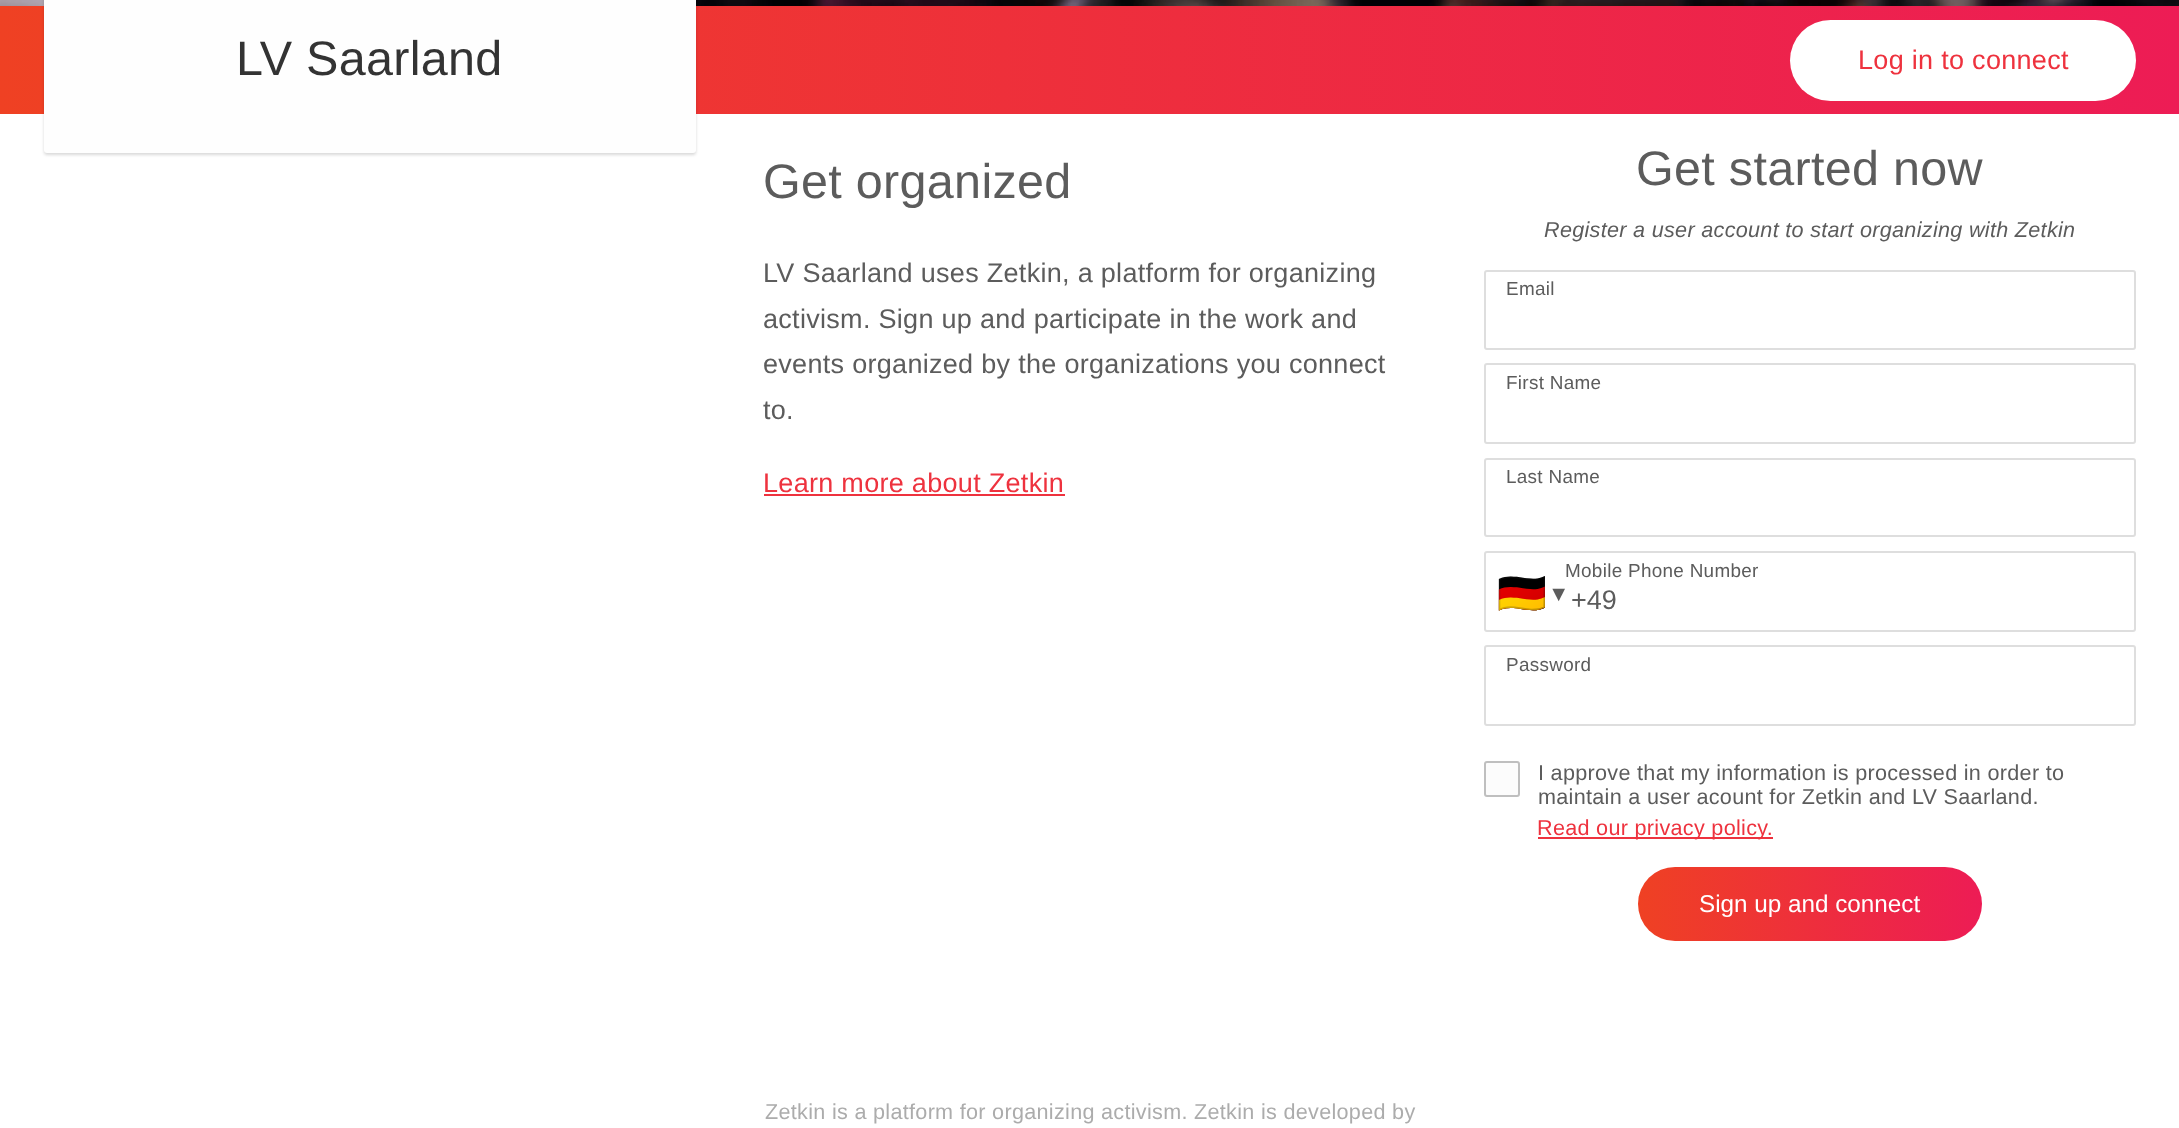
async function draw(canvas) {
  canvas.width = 2179
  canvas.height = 1128
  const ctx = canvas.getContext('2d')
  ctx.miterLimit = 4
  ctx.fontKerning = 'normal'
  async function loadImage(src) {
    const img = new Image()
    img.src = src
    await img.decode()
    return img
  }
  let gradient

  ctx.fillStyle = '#fff'
  ctx.fillRect(0, 0, 2179, 1128)
  gradient = ctx.createLinearGradient(0, -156, 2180, -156)
  gradient.addColorStop(0, '#ef4123')
  gradient.addColorStop(1, '#ed1c55')
  ctx.fillStyle = gradient
  ctx.fillRect(0, 6, 2179, 108)
  ctx.drawImage(await loadImage('image0.png'), 0, 0, 2179, 6)
  ctx.fillStyle = '#00000026'
  ctx.filter = 'blur(1.5px)'
  ctx.beginPath()
  ctx.roundRect(44, -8, 652, 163, 3)
  ctx.fill()
  ctx.filter = 'none'
  ctx.fillStyle = '#fefefe'
  ctx.beginPath()
  ctx.roundRect(44, -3, 652, 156, 3)
  ctx.fill()
  ctx.letterSpacing = '0.3px'
  ctx.font = '48.5px Liberation Sans'
  ctx.fillStyle = '#333'
  ctx.fillText('LV Saarland', 236, 75)
  ctx.fillStyle = '#fff'
  ctx.beginPath()
  ctx.roundRect(1790, 20, 346, 81, 40.5)
  ctx.fill()
  ctx.font = '27px Liberation Sans'
  ctx.fillStyle = '#ee323e'
  ctx.fillText('Log in to connect', 1858, 69)
  ctx.font = '48.5px Liberation Sans'
  ctx.fillStyle = '#5c5c5c'
  ctx.fillText('Get organized', 763, 198)
  ctx.font = '27px Liberation Sans'
  ctx.fillText('LV Saarland uses Zetkin, a platform for organizing', 763, 282)
  ctx.fillText('activism. Sign up and participate in the work and', 763, 328)
  ctx.fillText('events organized by the organizations you connect', 763, 373)
  ctx.fillText('to.', 763, 419)
  ctx.fillStyle = '#ee323e'
  ctx.fillText('Learn more about Zetkin', 763, 492)
  ctx.fillRect(764, 494, 301, 2)
  ctx.font = '48.5px Liberation Sans'
  ctx.fillStyle = '#5c5c5c'
  ctx.fillText('Get started now', 1636, 185)
  ctx.font = 'italic 21.6px Liberation Sans'
  ctx.fillText('Register a user account to start organizing with Zetkin', 1544, 237)
  ctx.beginPath()
  ctx.roundRect(1485, 271, 650, 78, 2)
  ctx.strokeStyle = '#dedede'
  ctx.lineWidth = 2
  ctx.stroke()
  ctx.font = '18.9px Liberation Sans'
  ctx.fillText('Email', 1506, 295)
  ctx.beginPath()
  ctx.roundRect(1485, 364, 650, 79, 2)
  ctx.stroke()
  ctx.fillText('First Name', 1506, 389)
  ctx.beginPath()
  ctx.roundRect(1485, 459, 650, 77, 2)
  ctx.stroke()
  ctx.fillText('Last Name', 1506, 483)
  ctx.beginPath()
  ctx.roundRect(1485, 552, 650, 79, 2)
  ctx.stroke()
  ctx.font = '40px Noto Color Emoji'
  ctx.fillText('🇩🇪', 1497, 607)
  ctx.font = '21.6px Liberation Sans'
  ctx.fillText('▼', 1548, 601)
  ctx.font = '18.9px Liberation Sans'
  ctx.fillText('Mobile Phone Number', 1565, 577)
  ctx.letterSpacing = '0px'
  ctx.font = '27px Liberation Sans'
  ctx.fillText('+49', 1571, 609)
  ctx.beginPath()
  ctx.roundRect(1485, 646, 650, 79, 2)
  ctx.stroke()
  ctx.letterSpacing = '0.3px'
  ctx.font = '18.9px Liberation Sans'
  ctx.fillText('Password', 1506, 671)
  ctx.fillStyle = '#fcfcfc'
  ctx.beginPath()
  ctx.roundRect(1485, 762, 34, 34, 2)
  ctx.fill()
  ctx.strokeStyle = '#bfbfbf'
  ctx.stroke()
  ctx.font = '21.6px Liberation Sans'
  ctx.fillStyle = '#5c5c5c'
  ctx.fillText('I approve that my information is processed in order to', 1538, 780)
  ctx.fillText('maintain a user acount for Zetkin and LV Saarland.', 1538, 804)
  ctx.fillStyle = '#ee323e'
  ctx.fillRect(1538, 837, 235, 2)
  ctx.fillText('Read our privacy policy.', 1537, 835)
  gradient = ctx.createLinearGradient(1638, 904, 1982, 904)
  gradient.addColorStop(0, '#ef4123')
  gradient.addColorStop(1, '#ed1c55')
  ctx.fillStyle = gradient
  ctx.beginPath()
  ctx.roundRect(1638, 867, 344, 74, 37)
  ctx.fill()
  ctx.letterSpacing = '0px'
  ctx.font = '24.25px Liberation Sans'
  ctx.fillStyle = '#fff'
  ctx.fillText('Sign up and connect', 1699, 912)
  ctx.letterSpacing = '0.3px'
  ctx.font = '21.6px Liberation Sans'
  ctx.fillStyle = '#acacac'
  ctx.fillText('Zetkin is a platform for organizing activism. Zetkin is developed by', 765, 1119)
}

draw(document.querySelector('canvas'))
